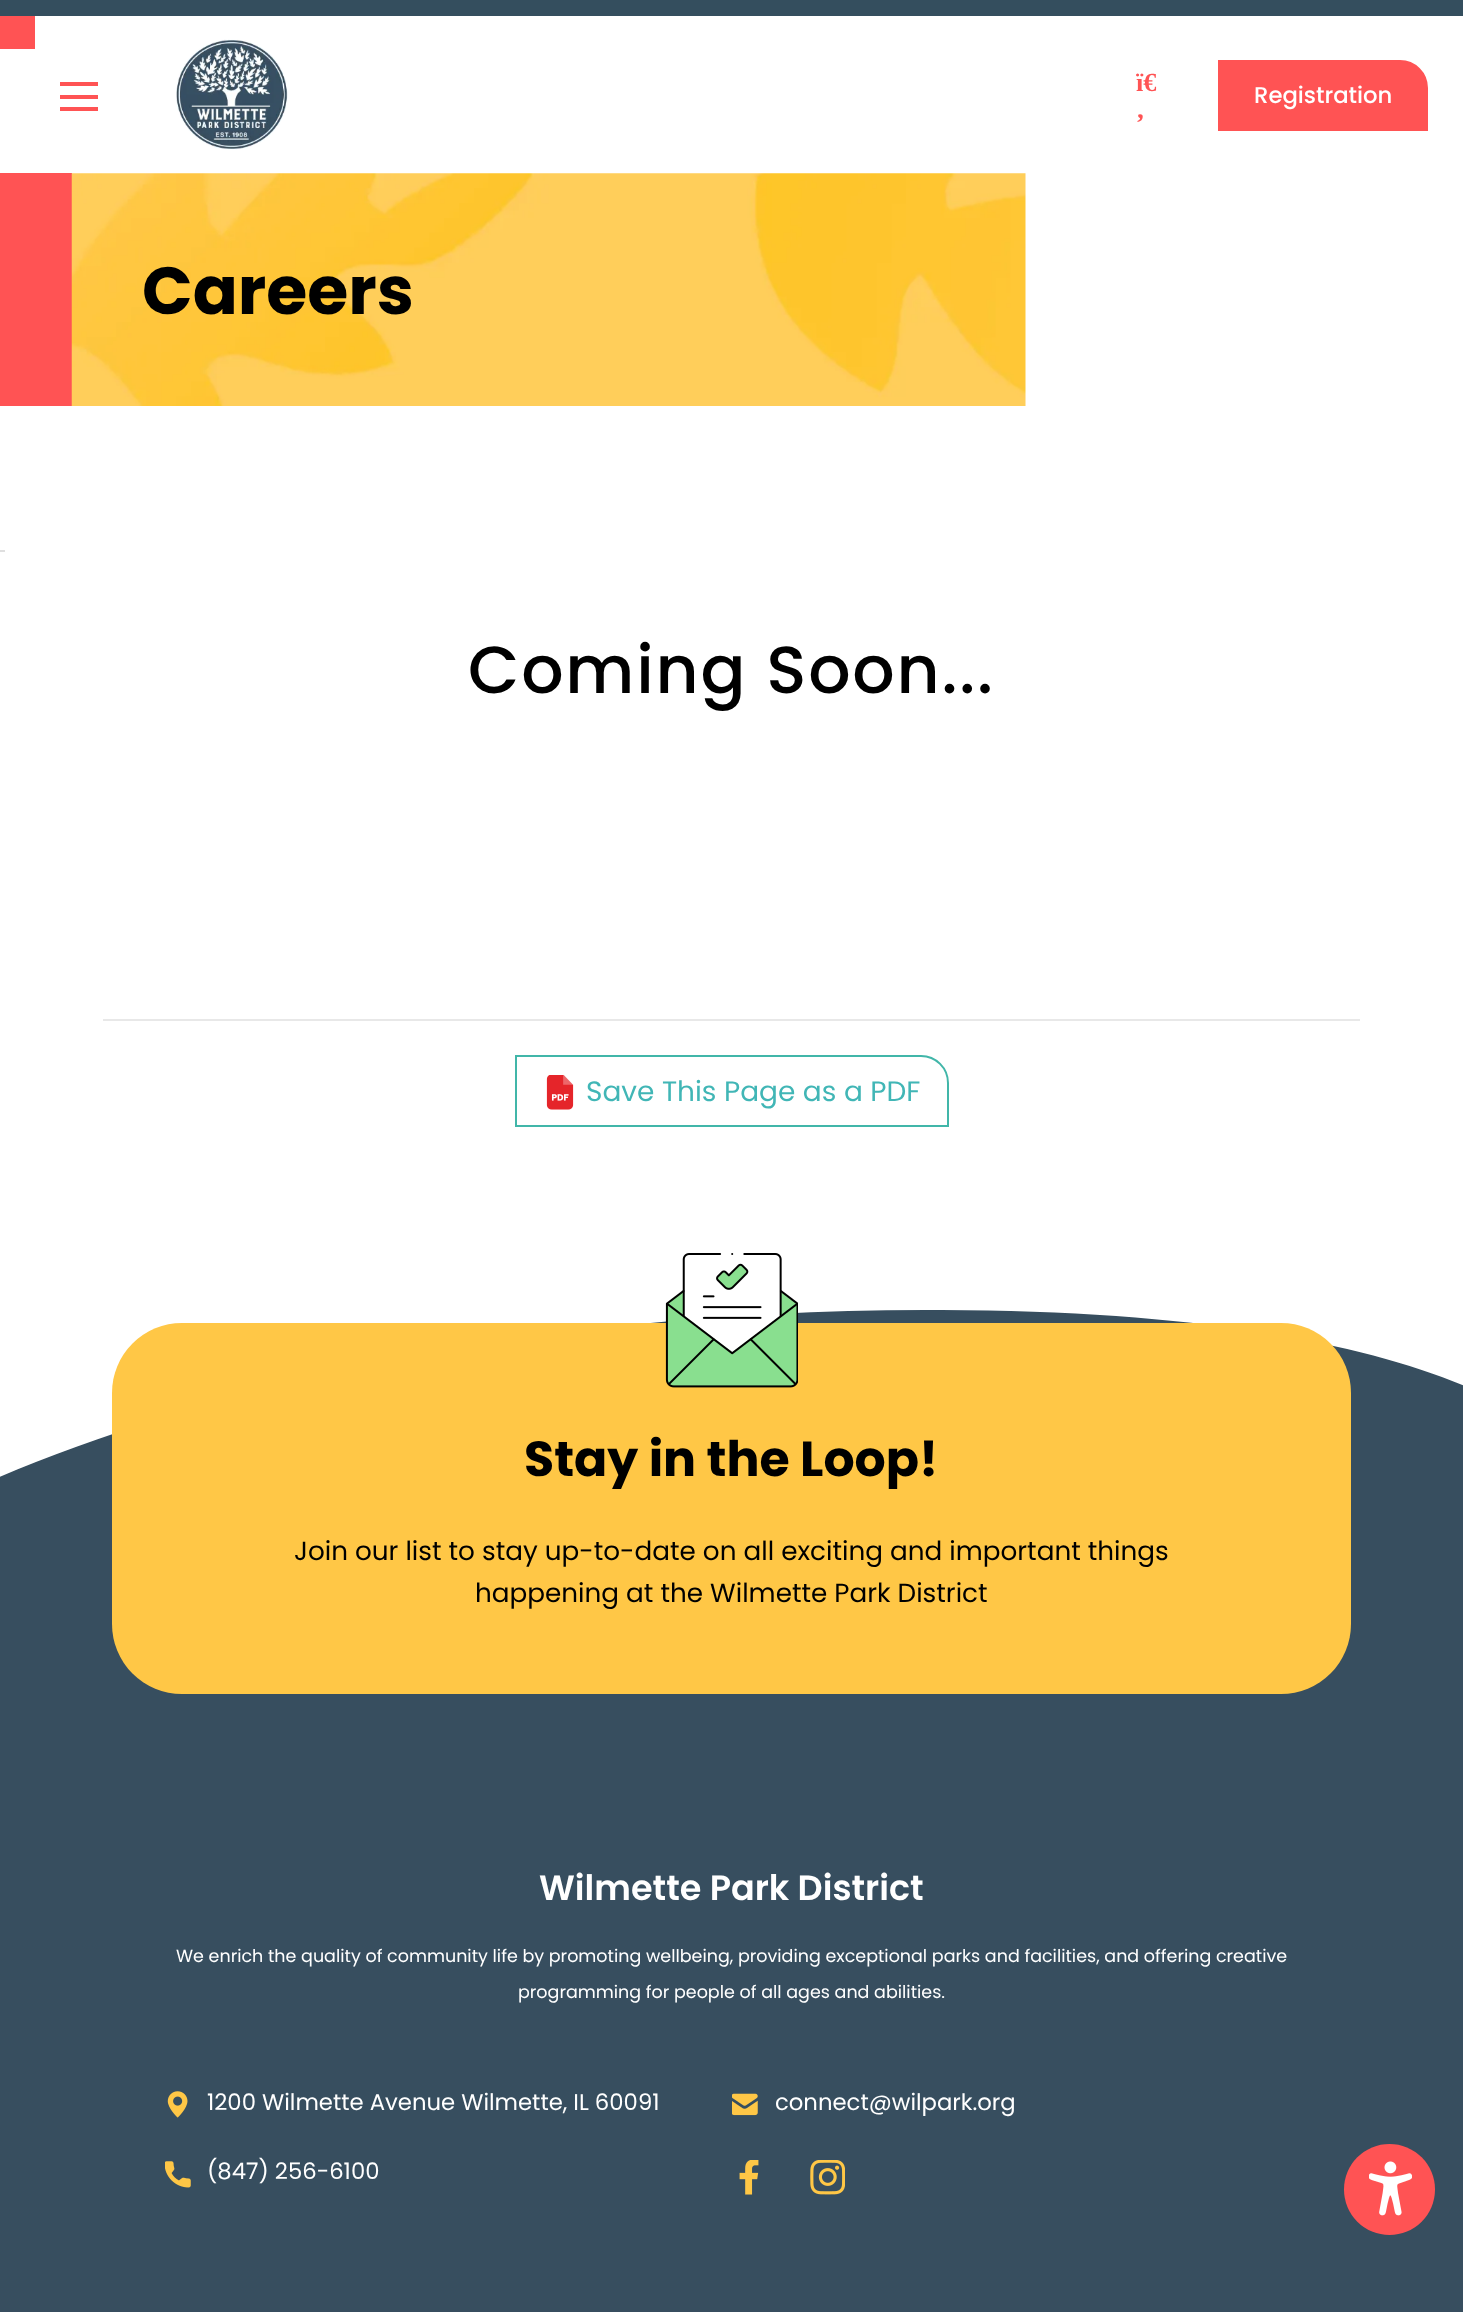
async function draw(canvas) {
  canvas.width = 1463
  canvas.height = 2312
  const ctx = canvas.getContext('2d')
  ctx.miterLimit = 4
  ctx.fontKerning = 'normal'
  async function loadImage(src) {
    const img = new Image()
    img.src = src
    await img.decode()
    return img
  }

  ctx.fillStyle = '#fff'
  ctx.fillRect(0, 0, 1463, 2312)
  ctx.fillStyle = '#ff5354'
  ctx.fillRect(0, 16, 35, 33)
  ctx.fillStyle = '#dfdfdf'
  ctx.fillRect(0, 550, 5, 2)
  ctx.fillStyle = '#344e5e'
  ctx.fillRect(0, 0, 1463, 16)
  ctx.fillStyle = '#ff5354'
  ctx.fillRect(60, 82, 38, 4)
  ctx.fillRect(60, 95, 38, 4)
  ctx.fillRect(60, 107, 38, 4)
  ctx.drawImage(await loadImage('image0.png'), 176, 39, 112, 111)
  ctx.font = 'bold 26.25px Liberation Serif'
  ctx.fillText('ï€', 1136, 91)
  ctx.fillText('‚', 1136, 118)
  ctx.beginPath()
  ctx.roundRect(1219, 61, 208, 69, [0, 27, 0, 0])
  ctx.fill()
  ctx.strokeStyle = '#ff5354'
  ctx.lineWidth = 2
  ctx.stroke()
  ctx.font = '500 22.75px Poppins'
  ctx.fillStyle = '#fff'
  ctx.fillText('Registration', 1254, 103)
  ctx.fillStyle = '#ff5354'
  ctx.fillRect(0, 173, 72, 233)
  ctx.drawImage(await loadImage('image1.png'), 71, 173, 955, 233)
  ctx.font = 'bold 66.5px Poppins'
  ctx.fillStyle = '#000'
  ctx.fillText('Careers', 142, 314)
  ctx.letterSpacing = '1.75px'
  ctx.font = '500 66.5px Poppins'
  ctx.fillText('Coming Soon...', 468, 693)
  ctx.fillStyle = '#e8e8e8'
  ctx.fillRect(103, 1019, 1257, 2)
  ctx.beginPath()
  ctx.roundRect(516, 1056, 432, 70, [0, 27, 0, 0])
  ctx.strokeStyle = '#41b6a9'
  ctx.stroke()
  ctx.drawImage(await loadImage('image2.png'), 546, 1075, 28, 35)
  ctx.letterSpacing = '0px'
  ctx.font = '28px Poppins'
  ctx.fillStyle = '#41b6b6'
  ctx.fillText('Save This Page as a PDF', 586, 1101)
  ctx.fillStyle = '#374e5f'
  ctx.fillRect(0, 1310, 1463, 1002)
  ctx.fillStyle = '#fff'
  ctx.beginPath()
  ctx.moveTo(942, 1310)
  ctx.bezierCurveTo(256, 1306, -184, 1541, -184, 1597)
  ctx.lineTo(-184, 1300)
  ctx.lineTo(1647, 1300)
  ctx.lineTo(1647, 1597)
  ctx.bezierCurveTo(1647, 1540, 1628, 1312, 942, 1310)
  ctx.closePath()
  ctx.fill()
  ctx.fillStyle = '#ffc746'
  ctx.beginPath()
  ctx.roundRect(112, 1323, 1239, 371, 70)
  ctx.fill()
  ctx.drawImage(await loadImage('image3.png'), 665, 1253, 133, 135)
  ctx.font = 'bold 49px Poppins'
  ctx.fillStyle = '#000'
  ctx.fillText('Stay in the Loop!', 524, 1476)
  ctx.font = '26.25px Poppins'
  ctx.fillText('Join our list to stay up-to-date on all exciting and important things', 294, 1560)
  ctx.fillText('happening at the Wilmette Park District', 475, 1602)
  ctx.font = '600 35px Poppins'
  ctx.fillStyle = '#fff'
  ctx.fillText('Wilmette Park District', 539, 1900)
  ctx.font = '17.5px Poppins'
  ctx.fillText('We enrich the quality of community life by promoting wellbeing, providing exceptional parks and facilities, and offering creative', 176, 1962)
  ctx.fillText('programming for people of all ages and abilities.', 518, 1998)
  ctx.drawImage(await loadImage('image4.png'), 167, 2091, 21, 27)
  ctx.font = '22.75px Poppins'
  ctx.fillText('1200 Wilmette Avenue Wilmette, IL 60091', 207, 2110)
  ctx.drawImage(await loadImage('image5.png'), 732, 2093, 26, 23)
  ctx.fillText('connect@wilpark.org', 775, 2110)
  ctx.drawImage(await loadImage('image6.png'), 165, 2161, 26, 27)
  ctx.fillText('(847) 256-6100', 207, 2179)
  ctx.drawImage(await loadImage('image7.png'), 739, 2160, 20, 35)
  ctx.drawImage(await loadImage('image8.png'), 810, 2160, 35, 35)
  ctx.fillStyle = '#ff5354'
  ctx.beginPath()
  ctx.arc(1389.5, 2189.5, 45.5, 0, 2 * Math.PI)
  ctx.fill()
  ctx.drawImage(await loadImage('image9.png'), 1369, 2161, 43, 55)
}

draw(document.querySelector('canvas'))
